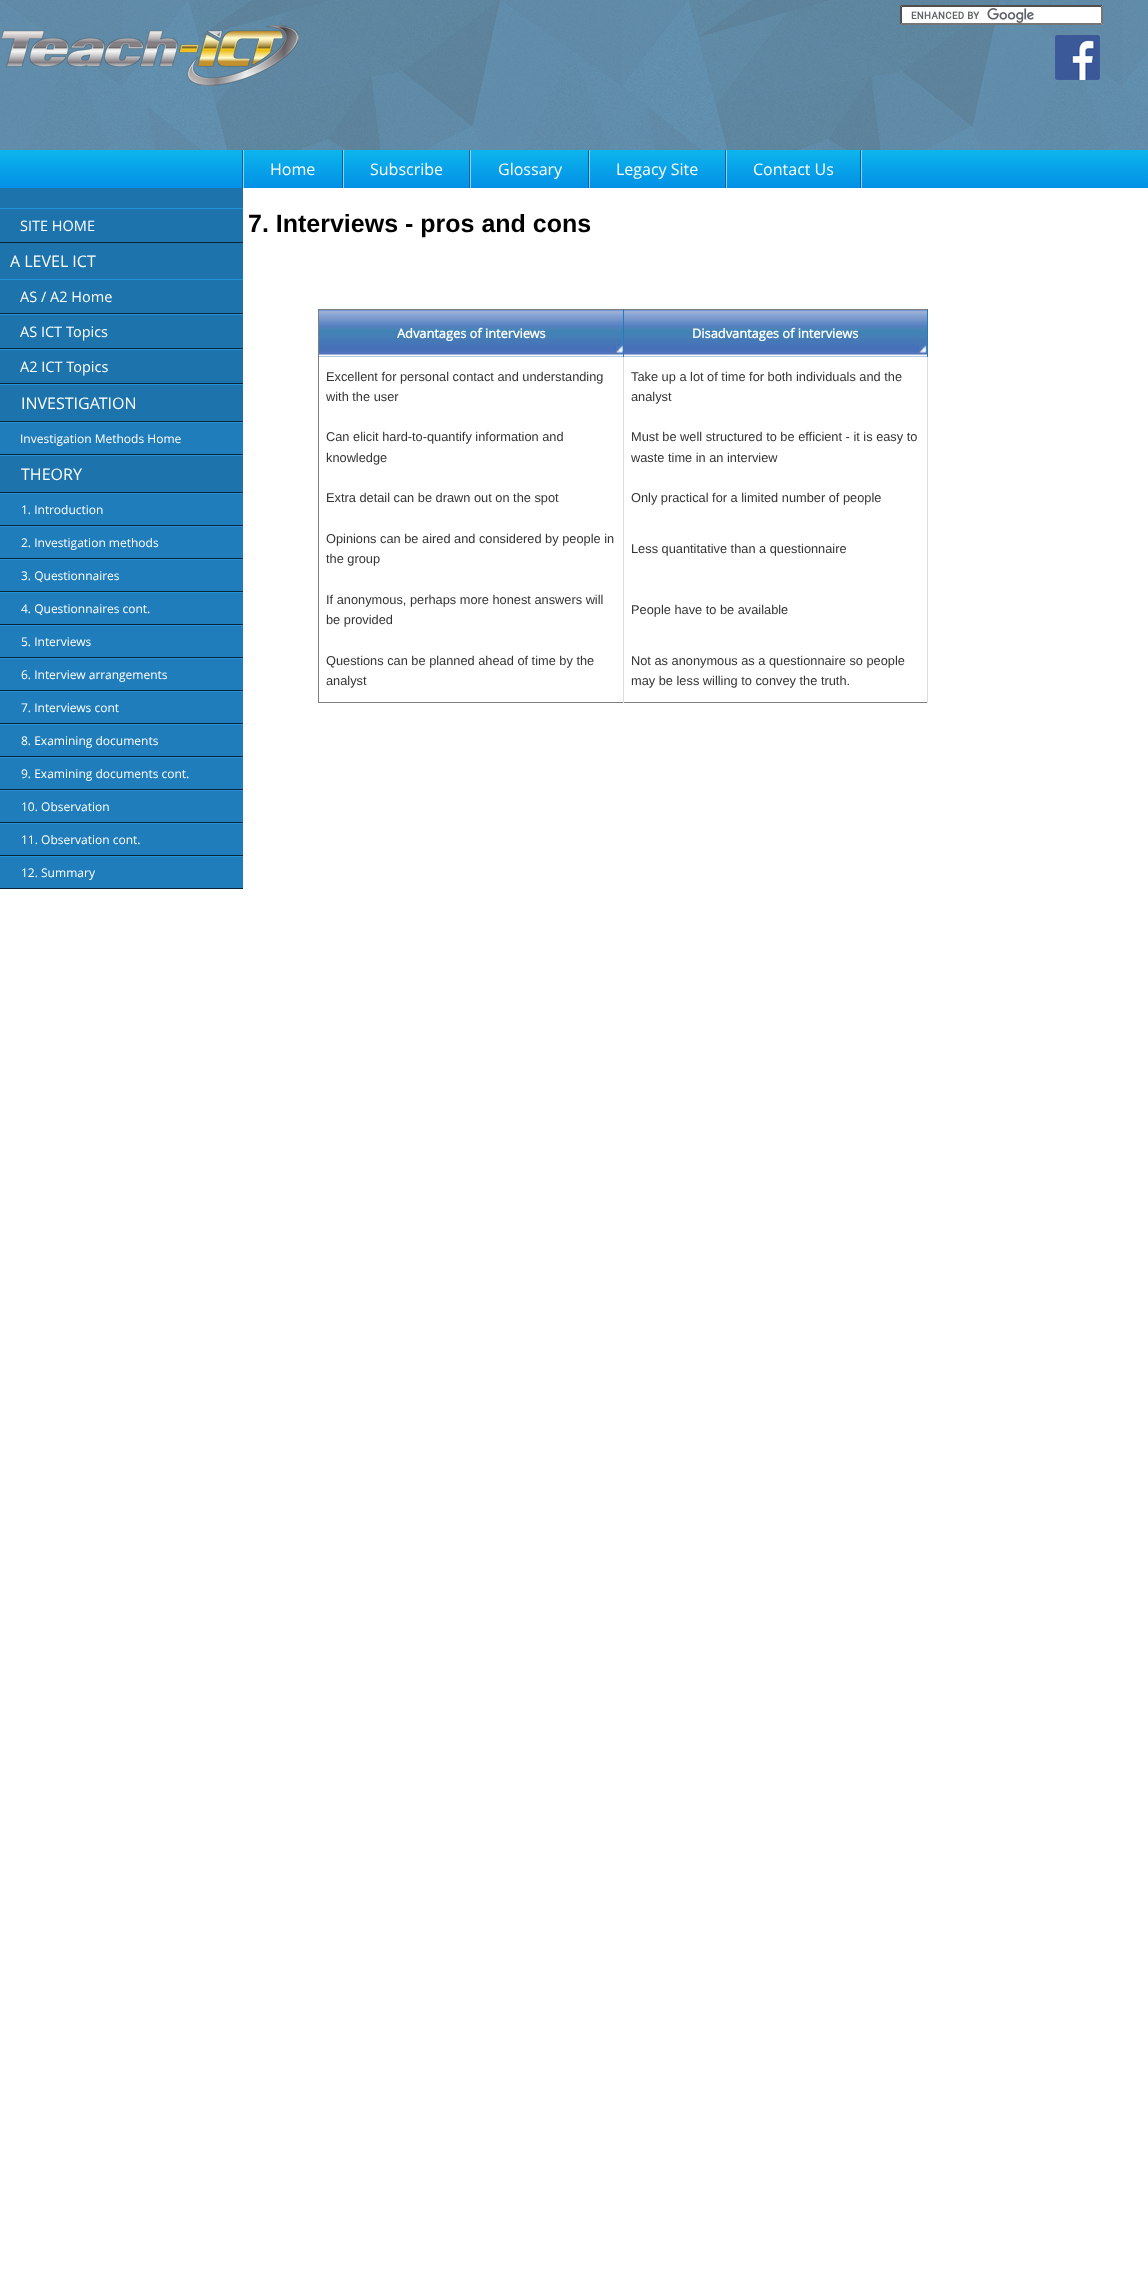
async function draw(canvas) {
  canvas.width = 1148
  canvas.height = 2292
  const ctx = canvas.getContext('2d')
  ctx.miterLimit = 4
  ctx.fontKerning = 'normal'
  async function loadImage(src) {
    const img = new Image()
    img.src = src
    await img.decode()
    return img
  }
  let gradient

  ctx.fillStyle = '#fff'
  ctx.fillRect(0, 0, 1148, 2292)
  ctx.fillStyle = '#6cbcf0'
  ctx.fillRect(0, 0, 1148, 150)
  ctx.drawImage(await loadImage('image0.png'), 0, 0, 1148, 150)
  ctx.drawImage(await loadImage('image1.png'), 1, 25, 298, 61)
  ctx.fillStyle = '#fff'
  ctx.fillRect(900, 5, 203, 20)
  ctx.drawImage(await loadImage('image2.png'), 911, 8, 123, 15)
  ctx.fillStyle = '#4f4f4f'
  ctx.beginPath()
  ctx.moveTo(900, 5)
  ctx.lineTo(1103, 5)
  ctx.lineTo(1101, 7)
  ctx.lineTo(902, 7)
  ctx.closePath()
  ctx.fill()
  ctx.fillStyle = '#767676'
  ctx.beginPath()
  ctx.moveTo(1103, 5)
  ctx.lineTo(1103, 25)
  ctx.lineTo(1101, 23)
  ctx.lineTo(1101, 7)
  ctx.closePath()
  ctx.fill()
  ctx.beginPath()
  ctx.moveTo(1103, 25)
  ctx.lineTo(900, 25)
  ctx.lineTo(902, 23)
  ctx.lineTo(1101, 23)
  ctx.closePath()
  ctx.fill()
  ctx.fillStyle = '#4f4f4f'
  ctx.beginPath()
  ctx.moveTo(900, 25)
  ctx.lineTo(900, 5)
  ctx.lineTo(902, 7)
  ctx.lineTo(902, 23)
  ctx.closePath()
  ctx.fill()
  ctx.drawImage(await loadImage('image3.png'), 1055, 35, 45, 45)
  gradient = ctx.createLinearGradient(574, 150, 574, 188)
  gradient.addColorStop(0, '#0cb5ec')
  gradient.addColorStop(1, '#0290e6')
  ctx.fillStyle = gradient
  ctx.fillRect(0, 150, 1148, 38)
  ctx.fillStyle = '#096399'
  ctx.fillRect(342, 150, 1, 38)
  ctx.fillStyle = '#8cd1fb'
  ctx.fillRect(243, 150, 1, 38)
  ctx.fillStyle = '#096399'
  ctx.fillRect(242, 150, 1, 38)
  ctx.font = '16px Open Sans'
  ctx.fillStyle = '#fff'
  ctx.fillText('Home', 270, 175)
  ctx.fillStyle = '#096399'
  ctx.fillRect(469, 150, 1, 38)
  ctx.fillStyle = '#8cd1fb'
  ctx.fillRect(343, 150, 1, 38)
  ctx.fillStyle = '#fff'
  ctx.fillText('Subscribe', 370, 175)
  ctx.fillStyle = '#096399'
  ctx.fillRect(588, 150, 1, 38)
  ctx.fillStyle = '#8cd1fb'
  ctx.fillRect(470, 150, 1, 38)
  ctx.fillStyle = '#fff'
  ctx.fillText('Glossary', 498, 175)
  ctx.fillStyle = '#096399'
  ctx.fillRect(725, 150, 1, 38)
  ctx.fillStyle = '#8cd1fb'
  ctx.fillRect(589, 150, 1, 38)
  ctx.fillStyle = '#fff'
  ctx.fillText('Legacy Site', 616, 175)
  ctx.fillStyle = '#096399'
  ctx.fillRect(860, 150, 1, 38)
  ctx.fillStyle = '#8cd1fb'
  ctx.fillRect(726, 150, 1, 38)
  ctx.fillStyle = '#fff'
  ctx.fillText('Contact Us', 753, 175)
  ctx.fillStyle = '#8cd1fb'
  ctx.fillRect(861, 150, 1, 38)
  ctx.fillStyle = '#1d74ad'
  ctx.fillRect(0, 188, 243, 304)
  ctx.fillStyle = '#2492db'
  ctx.fillRect(0, 208, 243, 1)
  ctx.fillStyle = '#092537'
  ctx.fillRect(0, 242, 243, 1)
  ctx.font = '14.5px Open Sans'
  ctx.fillStyle = '#fff'
  ctx.fillText('SITE HOME', 20, 231)
  ctx.font = '16px Open Sans'
  ctx.fillText('A LEVEL ICT', 10, 267)
  ctx.fillStyle = '#2492db'
  ctx.fillRect(0, 279, 243, 1)
  ctx.fillStyle = '#092537'
  ctx.fillRect(0, 313, 243, 1)
  ctx.font = '14.5px Open Sans'
  ctx.fillStyle = '#fff'
  ctx.fillText('AS / A2 Home', 20, 302)
  ctx.fillStyle = '#2492db'
  ctx.fillRect(0, 314, 243, 1)
  ctx.fillStyle = '#092537'
  ctx.fillRect(0, 348, 243, 1)
  ctx.fillStyle = '#fff'
  ctx.fillText('AS ICT Topics', 20, 337)
  ctx.fillStyle = '#2492db'
  ctx.fillRect(0, 349, 243, 1)
  ctx.fillStyle = '#092537'
  ctx.fillRect(0, 383, 243, 1)
  ctx.fillStyle = '#fff'
  ctx.fillText('A2 ICT Topics', 20, 372)
  ctx.fillStyle = '#2492db'
  ctx.fillRect(0, 384, 243, 1)
  ctx.fillStyle = '#092537'
  ctx.fillRect(0, 421, 243, 1)
  ctx.font = '16px Open Sans'
  ctx.fillStyle = '#fff'
  ctx.fillText('INVESTIGATION', 21, 409)
  ctx.fillStyle = '#1f7dbb'
  ctx.fillRect(0, 423, 243, 31)
  ctx.fillStyle = '#2492db'
  ctx.fillRect(0, 422, 243, 1)
  ctx.fillStyle = '#092537'
  ctx.fillRect(0, 454, 243, 1)
  ctx.font = '12px Open Sans'
  ctx.fillStyle = '#fff'
  ctx.fillText('Investigation Methods Home', 20, 443)
  ctx.fillStyle = '#2492db'
  ctx.fillRect(0, 455, 243, 1)
  ctx.fillStyle = '#092537'
  ctx.fillRect(0, 492, 243, 1)
  ctx.font = '16px Open Sans'
  ctx.fillStyle = '#fff'
  ctx.fillText('THEORY', 21, 480)
  ctx.fillStyle = '#1f7dbb'
  ctx.fillRect(0, 494, 243, 31)
  ctx.fillStyle = '#2492db'
  ctx.fillRect(0, 493, 243, 1)
  ctx.fillStyle = '#092537'
  ctx.fillRect(0, 525, 243, 1)
  ctx.font = '12px Open Sans'
  ctx.fillStyle = '#fff'
  ctx.fillText('1. Introduction', 21, 514)
  ctx.fillStyle = '#1f7dbb'
  ctx.fillRect(0, 527, 243, 31)
  ctx.fillStyle = '#2492db'
  ctx.fillRect(0, 526, 243, 1)
  ctx.fillStyle = '#092537'
  ctx.fillRect(0, 558, 243, 1)
  ctx.fillStyle = '#fff'
  ctx.fillText('2. Investigation methods', 21, 547)
  ctx.fillStyle = '#1f7dbb'
  ctx.fillRect(0, 560, 243, 31)
  ctx.fillStyle = '#2492db'
  ctx.fillRect(0, 559, 243, 1)
  ctx.fillStyle = '#092537'
  ctx.fillRect(0, 591, 243, 1)
  ctx.fillStyle = '#fff'
  ctx.fillText('3. Questionnaires', 21, 580)
  ctx.fillStyle = '#1f7dbb'
  ctx.fillRect(0, 593, 243, 31)
  ctx.fillStyle = '#2492db'
  ctx.fillRect(0, 592, 243, 1)
  ctx.fillStyle = '#092537'
  ctx.fillRect(0, 624, 243, 1)
  ctx.fillStyle = '#fff'
  ctx.fillText('4. Questionnaires cont.', 21, 613)
  ctx.fillStyle = '#1f7dbb'
  ctx.fillRect(0, 626, 243, 31)
  ctx.fillStyle = '#2492db'
  ctx.fillRect(0, 625, 243, 1)
  ctx.fillStyle = '#092537'
  ctx.fillRect(0, 657, 243, 1)
  ctx.fillStyle = '#fff'
  ctx.fillText('5. Interviews', 21, 646)
  ctx.fillStyle = '#1f7dbb'
  ctx.fillRect(0, 659, 243, 31)
  ctx.fillStyle = '#2492db'
  ctx.fillRect(0, 658, 243, 1)
  ctx.fillStyle = '#092537'
  ctx.fillRect(0, 690, 243, 1)
  ctx.fillStyle = '#fff'
  ctx.fillText('6. Interview arrangements', 21, 679)
  ctx.fillStyle = '#1f7dbb'
  ctx.fillRect(0, 692, 243, 31)
  ctx.fillStyle = '#2492db'
  ctx.fillRect(0, 691, 243, 1)
  ctx.fillStyle = '#092537'
  ctx.fillRect(0, 723, 243, 1)
  ctx.fillStyle = '#fff'
  ctx.fillText('7. Interviews cont', 21, 712)
  ctx.fillStyle = '#1f7dbb'
  ctx.fillRect(0, 725, 243, 31)
  ctx.fillStyle = '#2492db'
  ctx.fillRect(0, 724, 243, 1)
  ctx.fillStyle = '#092537'
  ctx.fillRect(0, 756, 243, 1)
  ctx.fillStyle = '#fff'
  ctx.fillText('8. Examining documents', 21, 745)
  ctx.fillStyle = '#1f7dbb'
  ctx.fillRect(0, 758, 243, 31)
  ctx.fillStyle = '#2492db'
  ctx.fillRect(0, 757, 243, 1)
  ctx.fillStyle = '#092537'
  ctx.fillRect(0, 789, 243, 1)
  ctx.fillStyle = '#fff'
  ctx.fillText('9. Examining documents cont.', 21, 778)
  ctx.fillStyle = '#1f7dbb'
  ctx.fillRect(0, 791, 243, 31)
  ctx.fillStyle = '#2492db'
  ctx.fillRect(0, 790, 243, 1)
  ctx.fillStyle = '#092537'
  ctx.fillRect(0, 822, 243, 1)
  ctx.fillStyle = '#fff'
  ctx.fillText('10. Observation', 21, 811)
  ctx.fillStyle = '#1f7dbb'
  ctx.fillRect(0, 824, 243, 31)
  ctx.fillStyle = '#2492db'
  ctx.fillRect(0, 823, 243, 1)
  ctx.fillStyle = '#092537'
  ctx.fillRect(0, 855, 243, 1)
  ctx.fillStyle = '#fff'
  ctx.fillText('11. Observation cont.', 21, 844)
  ctx.fillStyle = '#1f7dbb'
  ctx.fillRect(0, 857, 243, 31)
  ctx.fillStyle = '#2492db'
  ctx.fillRect(0, 856, 243, 1)
  ctx.fillStyle = '#092537'
  ctx.fillRect(0, 888, 243, 1)
  ctx.fillStyle = '#fff'
  ctx.fillText('12. Summary', 21, 877)
  ctx.font = 'bold 25px Liberation Sans'
  ctx.fillStyle = '#000'
  ctx.fillText('7. Interviews - pros and cons', 248, 232)
  ctx.fillStyle = '#808080'
  ctx.fillRect(318, 309, 610, 1)
  ctx.fillRect(318, 702, 610, 1)
  ctx.fillRect(318, 309, 1, 394)
  ctx.drawImage(await loadImage('image4.png'), 319, 310, 304, 47)
  ctx.fillStyle = '#ddd'
  ctx.fillRect(623, 356, 1, 347)
  ctx.fillStyle = '#1f7dbb'
  ctx.fillRect(623, 309, 1, 48)
  ctx.font = 'bold 12.8px Open Sans'
  ctx.fillStyle = '#fff'
  ctx.fillText('Advantages of interviews', 397, 338)
  ctx.drawImage(await loadImage('image5.png'), 624, 310, 303, 47)
  ctx.fillStyle = '#ddd'
  ctx.fillRect(927, 356, 1, 347)
  ctx.fillStyle = '#1f7dbb'
  ctx.fillRect(927, 309, 1, 48)
  ctx.fillStyle = '#fff'
  ctx.fillText('Disadvantages of interviews', 692, 338)
  ctx.font = '12.8px Liberation Sans'
  ctx.fillStyle = '#333'
  ctx.fillText('Excellent for personal contact and understanding', 326, 381)
  ctx.fillText('with the user', 326, 401)
  ctx.fillText('Take up a lot of time for both individuals and the', 631, 381)
  ctx.fillText('analyst', 631, 401)
  ctx.fillText('Can elicit hard-to-quantify information and', 326, 441)
  ctx.fillText('knowledge', 326, 462)
  ctx.fillText('Must be well structured to be efficient - it is easy to', 631, 441)
  ctx.fillText('waste time in an interview', 631, 462)
  ctx.fillText('Extra detail can be drawn out on the spot', 326, 502)
  ctx.fillText('Only practical for a limited number of people', 631, 502)
  ctx.fillText('Opinions can be aired and considered by people in', 326, 543)
  ctx.fillText('the group', 326, 563)
  ctx.fillText('Less quantitative than a questionnaire', 631, 553)
  ctx.fillText('If anonymous, perhaps more honest answers will', 326, 604)
  ctx.fillText('be provided', 326, 624)
  ctx.fillText('People have to be available', 631, 614)
  ctx.fillText('Questions can be planned ahead of time by the', 326, 665)
  ctx.fillText('analyst', 326, 685)
  ctx.fillText('Not as anonymous as a questionnaire so people', 631, 665)
  ctx.fillText('may be less willing to convey the truth.', 631, 685)
}

draw(document.querySelector('canvas'))
